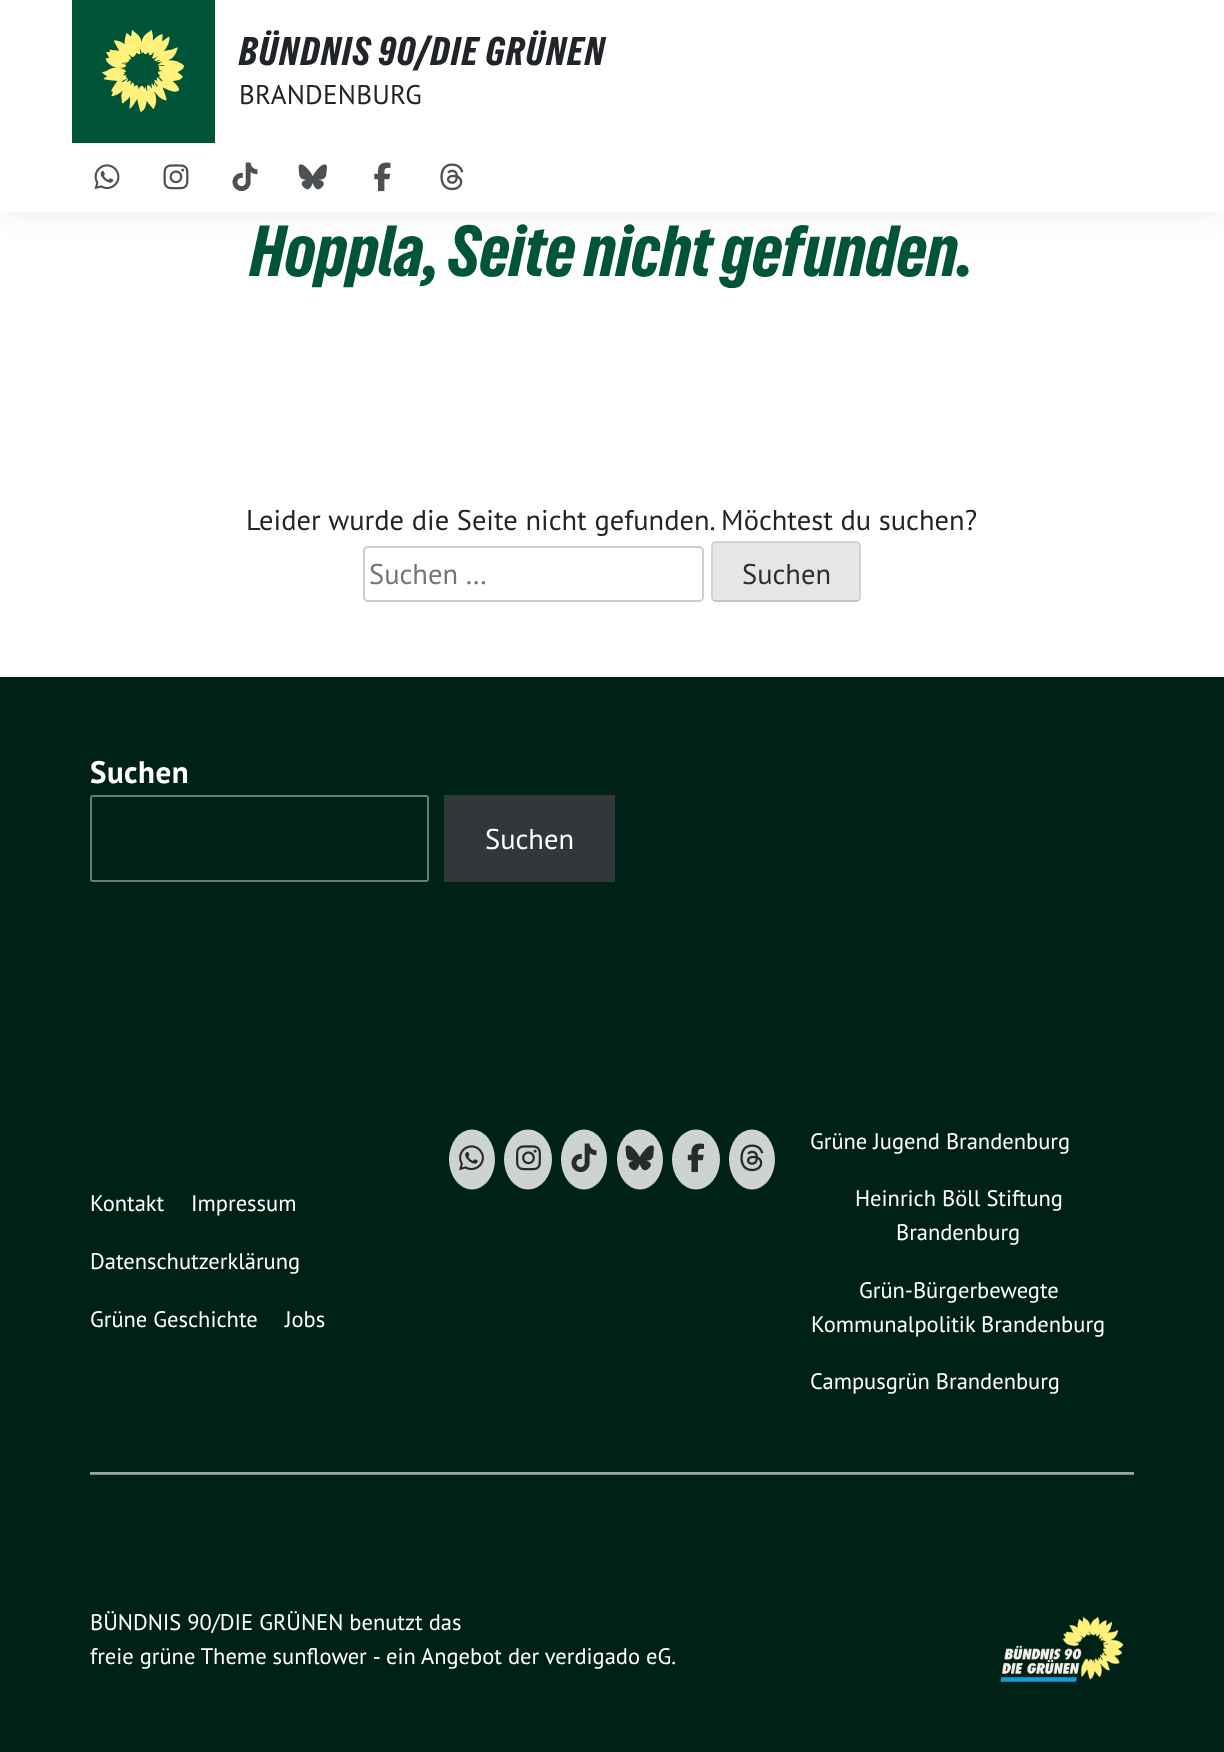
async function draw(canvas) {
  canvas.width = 1224
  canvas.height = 1752
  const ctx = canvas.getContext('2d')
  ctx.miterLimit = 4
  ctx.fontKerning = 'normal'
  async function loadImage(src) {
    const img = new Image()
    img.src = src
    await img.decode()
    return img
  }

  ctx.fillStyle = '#fff'
  ctx.fillRect(0, 0, 1224, 1752)
  ctx.fillStyle = '#00000014'
  ctx.filter = 'blur(15px)'
  ctx.beginPath()
  ctx.rect(0, 2, 1224, 211)
  ctx.fill()
  ctx.filter = 'none'
  ctx.fillStyle = '#fff'
  ctx.fillRect(0, 0, 1224, 212)
  ctx.fillStyle = '#005437'
  ctx.fillRect(72, 0, 143, 143)
  ctx.drawImage(await loadImage('image0.png'), 102, 30, 83, 83)
  ctx.letterSpacing = '1.5px'
  ctx.font = '37.5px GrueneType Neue'
  ctx.fillStyle = '#212529'
  ctx.fillText('BÜNDNIS 90/DIE GRÜNEN', 239, 65)
  ctx.letterSpacing = '0.25px'
  ctx.font = '27px PT Sans'
  ctx.fillText('BRANDENBURG', 239, 104)
  ctx.drawImage(await loadImage('image1.png'), 94, 164, 26, 26)
  ctx.drawImage(await loadImage('image2.png'), 163, 164, 26, 26)
  ctx.drawImage(await loadImage('image3.png'), 232, 162, 26, 30)
  ctx.drawImage(await loadImage('image4.png'), 298, 164, 29, 26)
  ctx.drawImage(await loadImage('image5.png'), 374, 162, 17, 30)
  ctx.drawImage(await loadImage('image6.png'), 440, 163, 24, 28)
  ctx.letterSpacing = '0px'
  ctx.font = '67.5px GrueneType Neue'
  ctx.fillStyle = '#005437'
  ctx.fillText('Hoppla, Seite nicht gefunden.', 250, 276)
  ctx.font = '28.5px PT Sans'
  ctx.fillStyle = '#212529'
  ctx.fillText('Leider wurde die Seite nicht gefunden. Möchtest du suchen?', 246, 530)
  ctx.beginPath()
  ctx.roundRect(364, 547, 339, 54, 4)
  ctx.strokeStyle = '#ccc'
  ctx.lineWidth = 2
  ctx.stroke()
  ctx.fillStyle = '#757575'
  ctx.fillText('Suchen …', 369, 584)
  ctx.fillStyle = '#e6e6e6'
  ctx.beginPath()
  ctx.roundRect(711, 542, 150, 60, 5)
  ctx.fill()
  ctx.beginPath()
  ctx.moveTo(859, 599.5)
  ctx.bezierCurveTo(858.5, 600.5, 857.5, 601, 856.5, 601)
  ctx.lineTo(715.5, 601)
  ctx.bezierCurveTo(714.5, 601, 713.5, 600.5, 713, 599.5)
  ctx.strokeStyle = '#bbb'
  ctx.lineWidth = 1.5
  ctx.stroke()
  ctx.beginPath()
  ctx.moveTo(713, 599.5)
  ctx.bezierCurveTo(712, 599, 712, 598, 712, 597)
  ctx.lineTo(712, 546)
  ctx.bezierCurveTo(712, 545, 712, 544, 713, 543.5)
  ctx.bezierCurveTo(713.5, 542.5, 714.5, 542, 715.5, 542)
  ctx.lineTo(856.5, 542)
  ctx.bezierCurveTo(857.5, 542, 858.5, 542.5, 859, 543.5)
  ctx.bezierCurveTo(860, 544, 860, 545, 860, 546)
  ctx.lineTo(860, 597)
  ctx.bezierCurveTo(860, 598, 860, 599, 859, 599.5)
  ctx.strokeStyle = '#ccc'
  ctx.stroke()
  ctx.fillStyle = '#2e2e2e'
  ctx.fillText('Suchen', 742, 584)
  ctx.fillStyle = '#002216'
  ctx.fillRect(0, 677, 1224, 1075)
  ctx.letterSpacing = '0.5px'
  ctx.font = 'bold 31px PT Sans'
  ctx.fillStyle = '#fff'
  ctx.fillText('Suchen', 90, 783)
  ctx.beginPath()
  ctx.roundRect(91, 796, 337, 85, 2)
  ctx.strokeStyle = '#6b7a80'
  ctx.lineWidth = 2
  ctx.stroke()
  ctx.fillStyle = '#32373c'
  ctx.fillRect(444, 795, 171, 87)
  ctx.letterSpacing = '0px'
  ctx.font = '28.5px PT Sans'
  ctx.fillStyle = '#fff'
  ctx.fillText('Suchen', 485, 849)
  ctx.font = '22.5px PT Sans'
  ctx.fillText('Kontakt', 90, 1211)
  ctx.fillText('Impressum', 191, 1211)
  ctx.fillText('Datenschutzerklärung', 90, 1269)
  ctx.fillText('Grüne Geschichte', 90, 1327)
  ctx.fillText('Jobs', 285, 1327)
  ctx.fillStyle = '#ccd3d0'
  ctx.beginPath()
  ctx.ellipse(472, 1159.5, 23, 30, 0, 0, 2 * Math.PI)
  ctx.fill()
  ctx.drawImage(await loadImage('image7.png'), 459, 1145, 25, 26)
  ctx.beginPath()
  ctx.ellipse(528, 1159.5, 24, 30, 0, 0, 2 * Math.PI)
  ctx.fill()
  ctx.drawImage(await loadImage('image8.png'), 516, 1145, 25, 26)
  ctx.beginPath()
  ctx.ellipse(584, 1159.5, 23, 30, 0, 0, 2 * Math.PI)
  ctx.fill()
  ctx.drawImage(await loadImage('image9.png'), 571, 1143, 26, 30)
  ctx.beginPath()
  ctx.ellipse(640, 1159.5, 23, 30, 0, 0, 2 * Math.PI)
  ctx.fill()
  ctx.drawImage(await loadImage('image10.png'), 625, 1145, 29, 26)
  ctx.beginPath()
  ctx.ellipse(696, 1159.5, 24, 30, 0, 0, 2 * Math.PI)
  ctx.fill()
  ctx.drawImage(await loadImage('image11.png'), 687, 1143, 18, 30)
  ctx.beginPath()
  ctx.ellipse(752, 1159.5, 23, 30, 0, 0, 2 * Math.PI)
  ctx.fill()
  ctx.drawImage(await loadImage('image12.png'), 740, 1144, 24, 28)
  ctx.fillStyle = '#fff'
  ctx.fillText('Grüne Jugend Brandenburg', 810, 1149)
  ctx.fillText('Heinrich Böll Stiftung', 855, 1206)
  ctx.fillText('Brandenburg', 896, 1240)
  ctx.fillText('Grün-Bürgerbewegte', 859, 1298)
  ctx.fillText('Kommunalpolitik Brandenburg', 811, 1332)
  ctx.fillText('Campusgrün Brandenburg', 810, 1389)
  ctx.fillStyle = '#7a8883'
  ctx.fillRect(90, 1474, 1044, 1)
  ctx.fillStyle = '#99a7a2'
  ctx.fillRect(90, 1472, 1044, 2)
  ctx.fillStyle = '#fff'
  ctx.fillText('BÜNDNIS 90/DIE GRÜNEN benutzt das', 90, 1630)
  ctx.fillText('freie grüne Theme sunflower', 90, 1664)
  ctx.font = '22.5px Liberation Sans'
  ctx.fillText('‐', 373, 1664)
  ctx.font = '22.5px PT Sans'
  ctx.fillText('ein Angebot der verdigado eG.', 386, 1664)
  ctx.drawImage(await loadImage('image13.png'), 1000, 1616, 124, 66)
}

draw(document.querySelector('canvas'))
